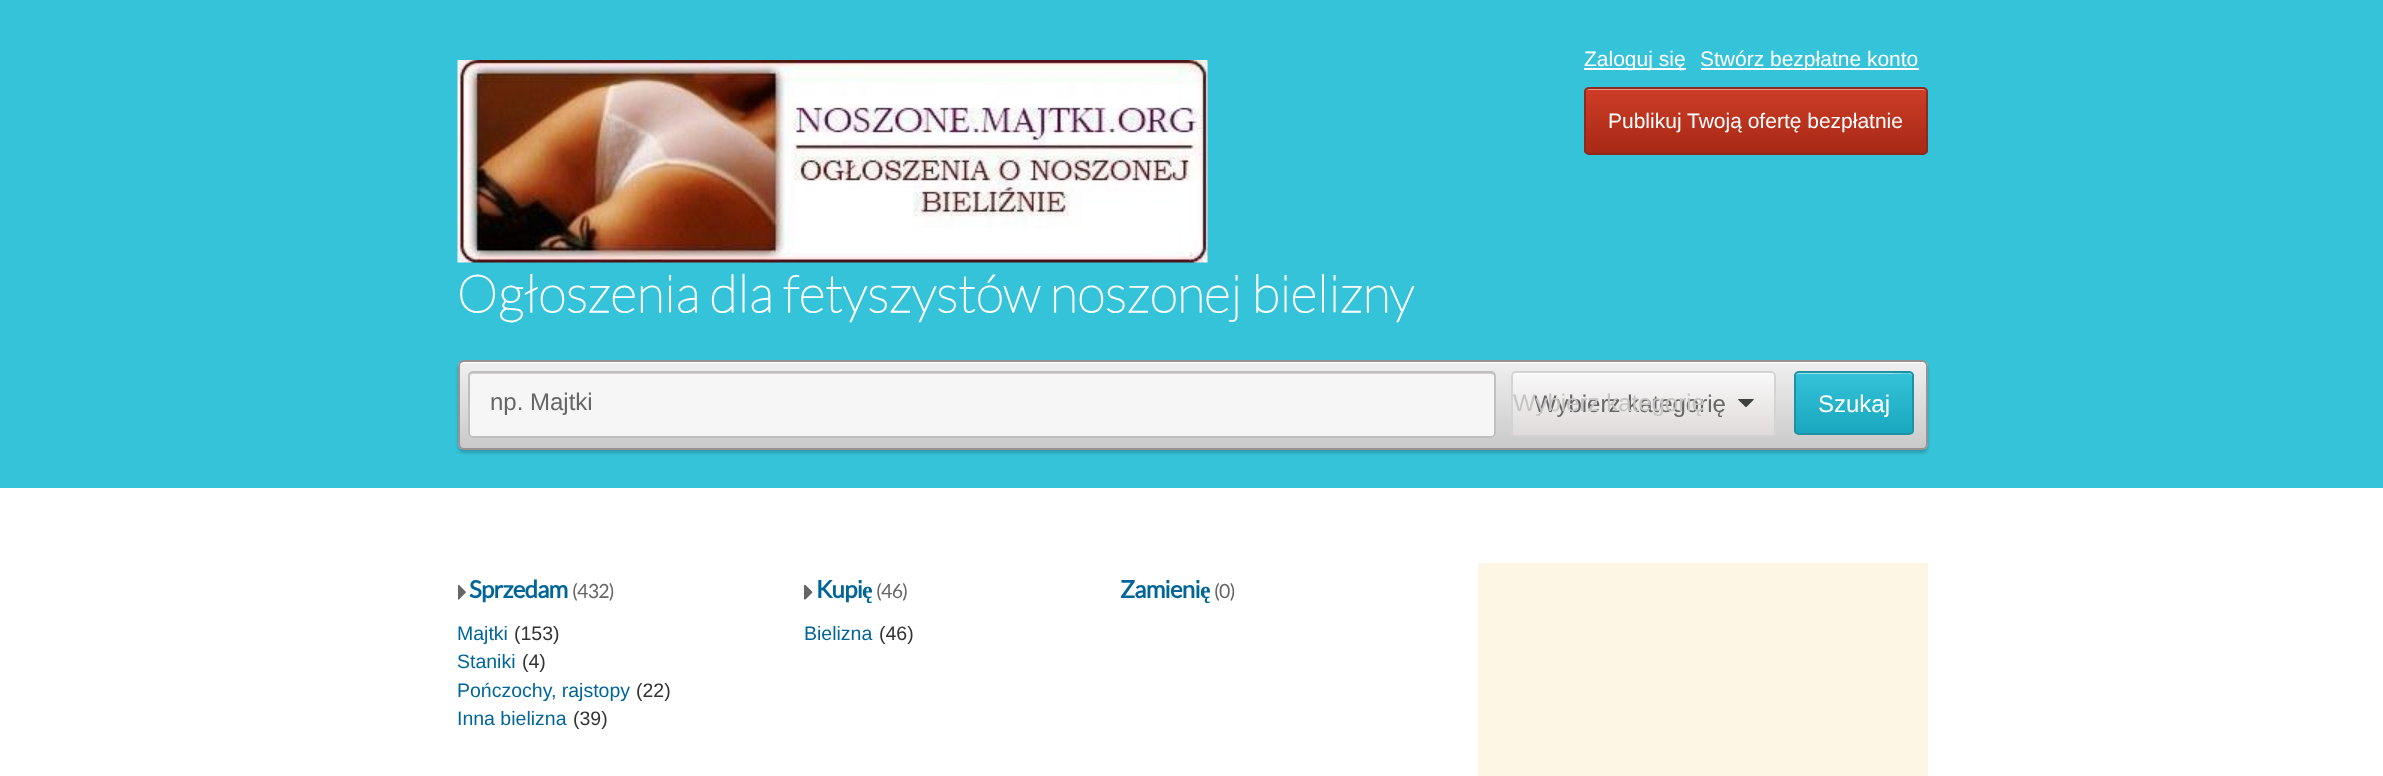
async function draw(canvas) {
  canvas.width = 2383
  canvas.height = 776
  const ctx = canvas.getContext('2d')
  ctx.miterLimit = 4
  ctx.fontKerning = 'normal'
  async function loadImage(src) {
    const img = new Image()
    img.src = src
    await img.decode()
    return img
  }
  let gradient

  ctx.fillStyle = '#fff'
  ctx.fillRect(0, 0, 2383, 776)
  ctx.fillStyle = '#35c3d9'
  ctx.fillRect(0, 0, 2383, 488)
  ctx.fillStyle = '#fff'
  ctx.fillRect(1584, 68, 102, 2)
  ctx.font = '21px Liberation Sans'
  ctx.fillText('Zaloguj się', 1584, 66)
  ctx.fillRect(1701, 68, 218, 2)
  ctx.fillText('Stwórz bezpłatne konto', 1700, 66)
  ctx.save()
  ctx.beginPath()
  ctx.roundRect(1584, 87, 344, 68, 5)
  ctx.clip()
  gradient = ctx.createLinearGradient(1756, 88, 1756, 153)
  gradient.addColorStop(0, '#ce3d27')
  gradient.addColorStop(1, '#a72915')
  ctx.fillStyle = gradient
  ctx.fillRect(1584, 89, 344, 64)
  ctx.restore()
  ctx.fillStyle = '#e9988b'
  ctx.beginPath()
  ctx.moveTo(1588, 90)
  ctx.lineTo(1923, 90)
  ctx.bezierCurveTo(1925, 90, 1926, 91, 1926, 93)
  ctx.bezierCurveTo(1926, 91, 1925, 89, 1923, 89)
  ctx.lineTo(1589, 89)
  ctx.bezierCurveTo(1587, 89, 1586, 91, 1586, 93)
  ctx.bezierCurveTo(1586, 91, 1587, 90, 1588, 90)
  ctx.closePath()
  ctx.fill()
  ctx.beginPath()
  ctx.roundRect(1585, 88, 342, 66, 4)
  ctx.strokeStyle = '#8d2a1b'
  ctx.lineWidth = 2
  ctx.stroke()
  ctx.fillStyle = '#fff'
  ctx.fillText('Publikuj Twoją ofertę bezpłatnie', 1608, 128)
  ctx.drawImage(await loadImage('image0.png'), 457, 60, 751, 203)
  ctx.font = '200 51.8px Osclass'
  ctx.fillText('Ogłoszenia dla fetyszystów noszonej bielizny', 457, 312)
  ctx.fillStyle = '#00000033'
  ctx.filter = 'blur(1.5px)'
  ctx.beginPath()
  ctx.roundRect(458, 363, 1470, 90, 6)
  ctx.fill()
  ctx.filter = 'none'
  ctx.save()
  ctx.beginPath()
  ctx.roundRect(458, 360, 1470, 90, 6)
  ctx.clip()
  gradient = ctx.createLinearGradient(1193, 361, 1193, 449)
  gradient.addColorStop(0, '#f0f0f0')
  gradient.addColorStop(1, '#c9c9c9')
  ctx.fillStyle = gradient
  ctx.fillRect(458, 362, 1470, 87)
  ctx.restore()
  ctx.fillStyle = '#fff'
  ctx.beginPath()
  ctx.moveTo(464, 363)
  ctx.lineTo(1922, 363)
  ctx.bezierCurveTo(1924, 363, 1926, 365, 1926, 368)
  ctx.lineTo(1926, 367)
  ctx.bezierCurveTo(1926, 364, 1924, 362, 1921, 362)
  ctx.lineTo(464, 362)
  ctx.bezierCurveTo(461, 362, 459, 364, 459, 367)
  ctx.lineTo(459, 368)
  ctx.bezierCurveTo(459, 365, 461, 363, 464, 363)
  ctx.closePath()
  ctx.fill()
  ctx.beginPath()
  ctx.roundRect(459, 361, 1468, 88, 5)
  ctx.strokeStyle = '#989393'
  ctx.stroke()
  ctx.fillStyle = '#f6f6f6'
  ctx.beginPath()
  ctx.roundRect(468, 371, 1028, 67, 5)
  ctx.fill()
  ctx.fillStyle = '#d6cece'
  ctx.beginPath()
  ctx.moveTo(472, 374)
  ctx.lineTo(1491, 374)
  ctx.bezierCurveTo(1493, 374, 1494, 375, 1494, 376)
  ctx.bezierCurveTo(1494, 374, 1493, 372, 1491, 372)
  ctx.lineTo(473, 372)
  ctx.bezierCurveTo(471, 372, 470, 374, 470, 376)
  ctx.bezierCurveTo(470, 375, 471, 374, 472, 374)
  ctx.closePath()
  ctx.fill()
  ctx.beginPath()
  ctx.roundRect(469, 372, 1026, 65, 4)
  ctx.strokeStyle = '#bfbfbf'
  ctx.stroke()
  ctx.font = '24px Liberation Sans'
  ctx.fillStyle = '#666'
  ctx.fillText('np. Majtki', 490, 410)
  ctx.save()
  ctx.beginPath()
  ctx.roundRect(1511, 371, 265, 66, 5)
  ctx.clip()
  gradient = ctx.createLinearGradient(1643, 372, 1643, 435)
  gradient.addColorStop(0, '#f9f9f9')
  gradient.addColorStop(1, '#e0dada')
  ctx.fillStyle = gradient
  ctx.fillRect(1511, 372, 265, 63)
  ctx.restore()
  ctx.fillStyle = '#fff'
  ctx.beginPath()
  ctx.moveTo(1515, 374)
  ctx.lineTo(1772, 374)
  ctx.bezierCurveTo(1773, 374, 1774, 375, 1774, 376)
  ctx.lineTo(1774, 434)
  ctx.bezierCurveTo(1775, 434, 1775, 433, 1775, 432)
  ctx.lineTo(1775, 375)
  ctx.bezierCurveTo(1775, 373, 1774, 372, 1772, 372)
  ctx.lineTo(1515, 372)
  ctx.bezierCurveTo(1513, 372, 1512, 373, 1512, 375)
  ctx.lineTo(1512, 376)
  ctx.bezierCurveTo(1512, 375, 1513, 374, 1515, 374)
  ctx.closePath()
  ctx.fill()
  ctx.beginPath()
  ctx.roundRect(1512, 372, 263, 64, 4)
  ctx.strokeStyle = '#d3d3d3'
  ctx.stroke()
  ctx.fillStyle = '#666'
  ctx.fillText('Wybierz kategorię', 1534, 412)
  ctx.fillStyle = '#c5c3c3'
  ctx.fillText('Wybierz kategorię', 1513, 411)
  ctx.font = '19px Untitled'
  ctx.fillStyle = '#404040'
  ctx.fillText('0', 1738, 407)
  ctx.save()
  ctx.beginPath()
  ctx.roundRect(1794, 371, 120, 64, 5)
  ctx.clip()
  gradient = ctx.createLinearGradient(1854, 372, 1854, 434)
  gradient.addColorStop(0, '#35c3d9')
  gradient.addColorStop(1, '#18a7be')
  ctx.fillStyle = gradient
  ctx.fillRect(1794, 372, 120, 62)
  ctx.restore()
  ctx.fillStyle = '#a0e3ed'
  ctx.beginPath()
  ctx.moveTo(1798, 374)
  ctx.lineTo(1891, 374)
  ctx.bezierCurveTo(1917, 374, 1912, 369, 1912, 395)
  ctx.lineTo(1912, 433)
  ctx.bezierCurveTo(1913, 433, 1913, 432, 1913, 431)
  ctx.lineTo(1913, 375)
  ctx.bezierCurveTo(1913, 373, 1912, 372, 1910, 372)
  ctx.lineTo(1799, 372)
  ctx.bezierCurveTo(1797, 372, 1796, 373, 1796, 375)
  ctx.lineTo(1796, 376)
  ctx.bezierCurveTo(1796, 375, 1797, 374, 1798, 374)
  ctx.closePath()
  ctx.fill()
  ctx.beginPath()
  ctx.roundRect(1795, 372, 118, 62, 4)
  ctx.strokeStyle = '#1f91a3'
  ctx.stroke()
  ctx.font = '24px Liberation Sans'
  ctx.fillStyle = '#fff'
  ctx.fillText('Szukaj', 1818, 412)
  ctx.drawImage(await loadImage('image1.png'), 458, 584, 8, 16)
  ctx.letterSpacing = '-0.75px'
  ctx.font = 'bold 24px Osclass'
  ctx.fillStyle = '#069'
  ctx.fillText('Sprzedam', 469, 598)
  ctx.font = '19.5px Osclass'
  ctx.fillStyle = '#666'
  ctx.fillText('(432)', 572, 598)
  ctx.letterSpacing = '0px'
  ctx.font = '19.5px Liberation Sans'
  ctx.fillStyle = '#069'
  ctx.fillText('Majtki', 457, 640)
  ctx.fillStyle = '#333'
  ctx.fillText('(153)', 514, 640)
  ctx.fillStyle = '#069'
  ctx.fillText('Staniki', 457, 668)
  ctx.fillStyle = '#333'
  ctx.fillText('(4)', 522, 668)
  ctx.fillStyle = '#069'
  ctx.fillText('Pończochy, rajstopy', 457, 697)
  ctx.fillStyle = '#333'
  ctx.fillText('(22)', 636, 697)
  ctx.fillStyle = '#069'
  ctx.fillText('Inna bielizna', 457, 725)
  ctx.fillStyle = '#333'
  ctx.fillText('(39)', 573, 725)
  ctx.drawImage(await loadImage('image2.png'), 804, 584, 9, 16)
  ctx.letterSpacing = '-0.75px'
  ctx.font = 'bold 24px Osclass'
  ctx.fillStyle = '#069'
  ctx.fillText('Kupi', 816, 598)
  ctx.font = 'bold 24px Liberation Serif'
  ctx.fillText('ę', 862, 598)
  ctx.font = '19.5px Osclass'
  ctx.fillStyle = '#666'
  ctx.fillText('(46)', 876, 598)
  ctx.letterSpacing = '0px'
  ctx.font = '19.5px Liberation Sans'
  ctx.fillStyle = '#069'
  ctx.fillText('Bielizna', 804, 640)
  ctx.fillStyle = '#333'
  ctx.fillText('(46)', 879, 640)
  ctx.letterSpacing = '-0.75px'
  ctx.font = 'bold 24px Osclass'
  ctx.fillStyle = '#069'
  ctx.fillText('Zamieni', 1120, 598)
  ctx.font = 'bold 24px Liberation Serif'
  ctx.fillText('ę', 1200, 598)
  ctx.font = '19.5px Osclass'
  ctx.fillStyle = '#666'
  ctx.fillText('(0)', 1214, 598)
  ctx.fillStyle = '#fdf6e5'
  ctx.fillRect(1478, 563, 450, 213)
}

draw(document.querySelector('canvas'))
